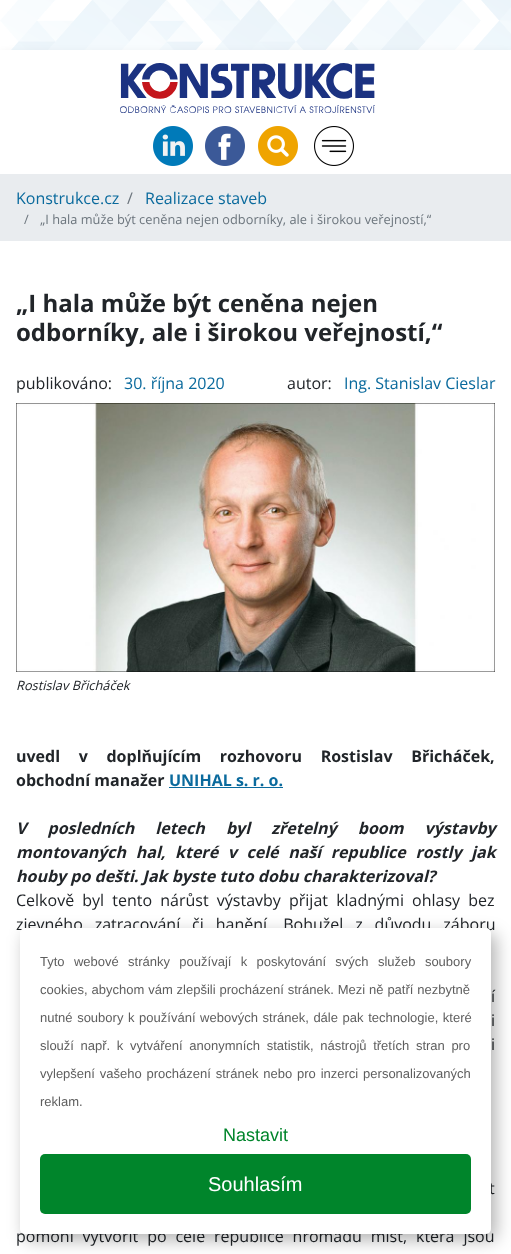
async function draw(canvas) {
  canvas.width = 511
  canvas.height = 1254
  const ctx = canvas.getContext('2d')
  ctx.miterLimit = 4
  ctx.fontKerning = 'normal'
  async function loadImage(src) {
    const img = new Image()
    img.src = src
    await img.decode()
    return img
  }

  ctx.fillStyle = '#fff'
  ctx.fillRect(0, 0, 511, 1254)
  ctx.drawImage(await loadImage('image0.png'), 0, 0, 511, 50)
  ctx.fillStyle = '#00000026'
  ctx.filter = 'blur(5px)'
  ctx.beginPath()
  ctx.rect(1, 55, 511, 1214)
  ctx.fill()
  ctx.filter = 'none'
  ctx.fillStyle = '#fff'
  ctx.fillRect(0, 50, 511, 1204)
  ctx.drawImage(await loadImage('image1.png'), 120, 63, 255, 50)
  ctx.drawImage(await loadImage('image2.png'), 153, 126, 40, 40)
  ctx.drawImage(await loadImage('image3.png'), 205, 126, 40, 40)
  ctx.drawImage(await loadImage('image4.png'), 258, 126, 40, 40)
  ctx.drawImage(await loadImage('image5.png'), 314, 126, 40, 40)
  ctx.fillStyle = '#e9ecef'
  ctx.fillRect(0, 174, 511, 67)
  ctx.font = '16px Open Sans'
  ctx.fillStyle = '#0a6a9d'
  ctx.fillText('Konstrukce.cz', 16, 204)
  ctx.fillStyle = '#6c757d'
  ctx.fillText('/', 127, 204)
  ctx.fillStyle = '#0a6a9d'
  ctx.fillText('Realizace staveb', 145, 204)
  ctx.font = '12.8px Open Sans'
  ctx.fillStyle = '#6c757d'
  ctx.fillText('/', 24, 224)
  ctx.fillText('„I hala může být ceněna nejen odborníky, ale i širokou veřejností,“', 40, 224)
  ctx.font = 'bold 24px Open Sans'
  ctx.fillStyle = '#212529'
  ctx.fillText('„I hala může být ceněna nejen', 16, 312)
  ctx.fillText('odborníky, ale i širokou veřejností,“', 16, 341)
  ctx.font = '16px Open Sans'
  ctx.fillText('publikováno:', 16, 389)
  ctx.fillStyle = '#0a6a9d'
  ctx.fillText('30. října 2020', 124, 389)
  ctx.fillStyle = '#212529'
  ctx.fillText('autor:', 287, 389)
  ctx.fillStyle = '#0a6a9d'
  ctx.fillText('Ing. Stanislav Cieslar', 344, 389)
  ctx.drawImage(await loadImage('image6.png'), 16, 403, 479, 269)
  ctx.font = 'italic 12.8px Open Sans'
  ctx.fillStyle = '#212529'
  ctx.fillText('Rostislav Břicháček', 16, 690)
  ctx.wordSpacing = '14.5px'
  ctx.font = 'bold 16px Open Sans'
  ctx.fillText('uvedl v doplňujícím rozhovoru Rostislav Břicháček,', 16, 762)
  ctx.wordSpacing = '0px'
  ctx.fillText('obchodní manažer', 16, 786)
  ctx.fillStyle = '#0a6a9d'
  ctx.fillText('UNIHAL s. r. o.', 169, 786)
  ctx.fillRect(169, 787, 114, 1)
  ctx.wordSpacing = '17px'
  ctx.font = 'italic bold 16px Open Sans'
  ctx.fillStyle = '#212529'
  ctx.fillText('V posledních letech byl zřetelný boom výstavby', 16, 834)
  ctx.wordSpacing = '5.5px'
  ctx.fillText('montovaných hal, které v celé naší republice rostly jak', 16, 858)
  ctx.wordSpacing = '0px'
  ctx.fillText('houby po dešti. Jak byste tuto dobu charakterizoval?', 16, 882)
  ctx.wordSpacing = '4px'
  ctx.font = '16px Open Sans'
  ctx.fillText('Celkově byl tento nárůst výstavby přijat kladnými ohlasy bez', 16, 906)
  ctx.wordSpacing = '7.75px'
  ctx.fillText('zjevného zatracování či hanění. Bohužel z důvodu záboru', 16, 930)
  ctx.wordSpacing = '9px'
  ctx.fillText('í', 491, 1002)
  ctx.fillText('i', 491, 1026)
  ctx.wordSpacing = '14px'
  ctx.fillText('i', 491, 1050)
  ctx.wordSpacing = '6px'
  ctx.fillText('t', 489, 1194)
  ctx.wordSpacing = '4.75px'
  ctx.fillText('pomohl vytvořit po celé republice hromadu míst, která jsou', 16, 1242)
  ctx.fillStyle = '#0000004d'
  ctx.filter = 'blur(8.5px)'
  ctx.beginPath()
  ctx.roundRect(25, 934, 471, 306, 5)
  ctx.fill()
  ctx.filter = 'none'
  ctx.fillStyle = '#fff'
  ctx.beginPath()
  ctx.roundRect(20, 928, 471, 306, 5)
  ctx.fill()
  ctx.wordSpacing = '5.75px'
  ctx.font = '13px Liberation Sans'
  ctx.fillStyle = '#5e5e5e'
  ctx.fillText('Tyto webové stránky používají k poskytování svých služeb soubory', 40, 966)
  ctx.wordSpacing = '0.25px'
  ctx.fillText('cookies, abychom vám zlepšili procházení stránek. Mezi ně patří nezbytně', 40, 994)
  ctx.wordSpacing = '1px'
  ctx.fillText('nutné soubory k používání webových stránek, dále pak technologie, které', 40, 1022)
  ctx.wordSpacing = '3px'
  ctx.fillText('slouží např. k vytváření anonymních statistik, nástrojů třetích stran pro', 40, 1050)
  ctx.wordSpacing = '1.25px'
  ctx.fillText('vylepšení vašeho procházení stránek nebo pro inzerci personalizovaných', 40, 1078)
  ctx.wordSpacing = '0px'
  ctx.fillText('reklam.', 40, 1106)
  ctx.font = '18px Liberation Sans'
  ctx.fillStyle = '#00852b'
  ctx.fillText('Nastavit', 223, 1141)
  ctx.beginPath()
  ctx.roundRect(40, 1154, 431, 60, 5)
  ctx.fill()
  ctx.font = '20px Liberation Sans'
  ctx.fillStyle = '#fff'
  ctx.fillText('Souhlasím', 208, 1191)
}

draw(document.querySelector('canvas'))
